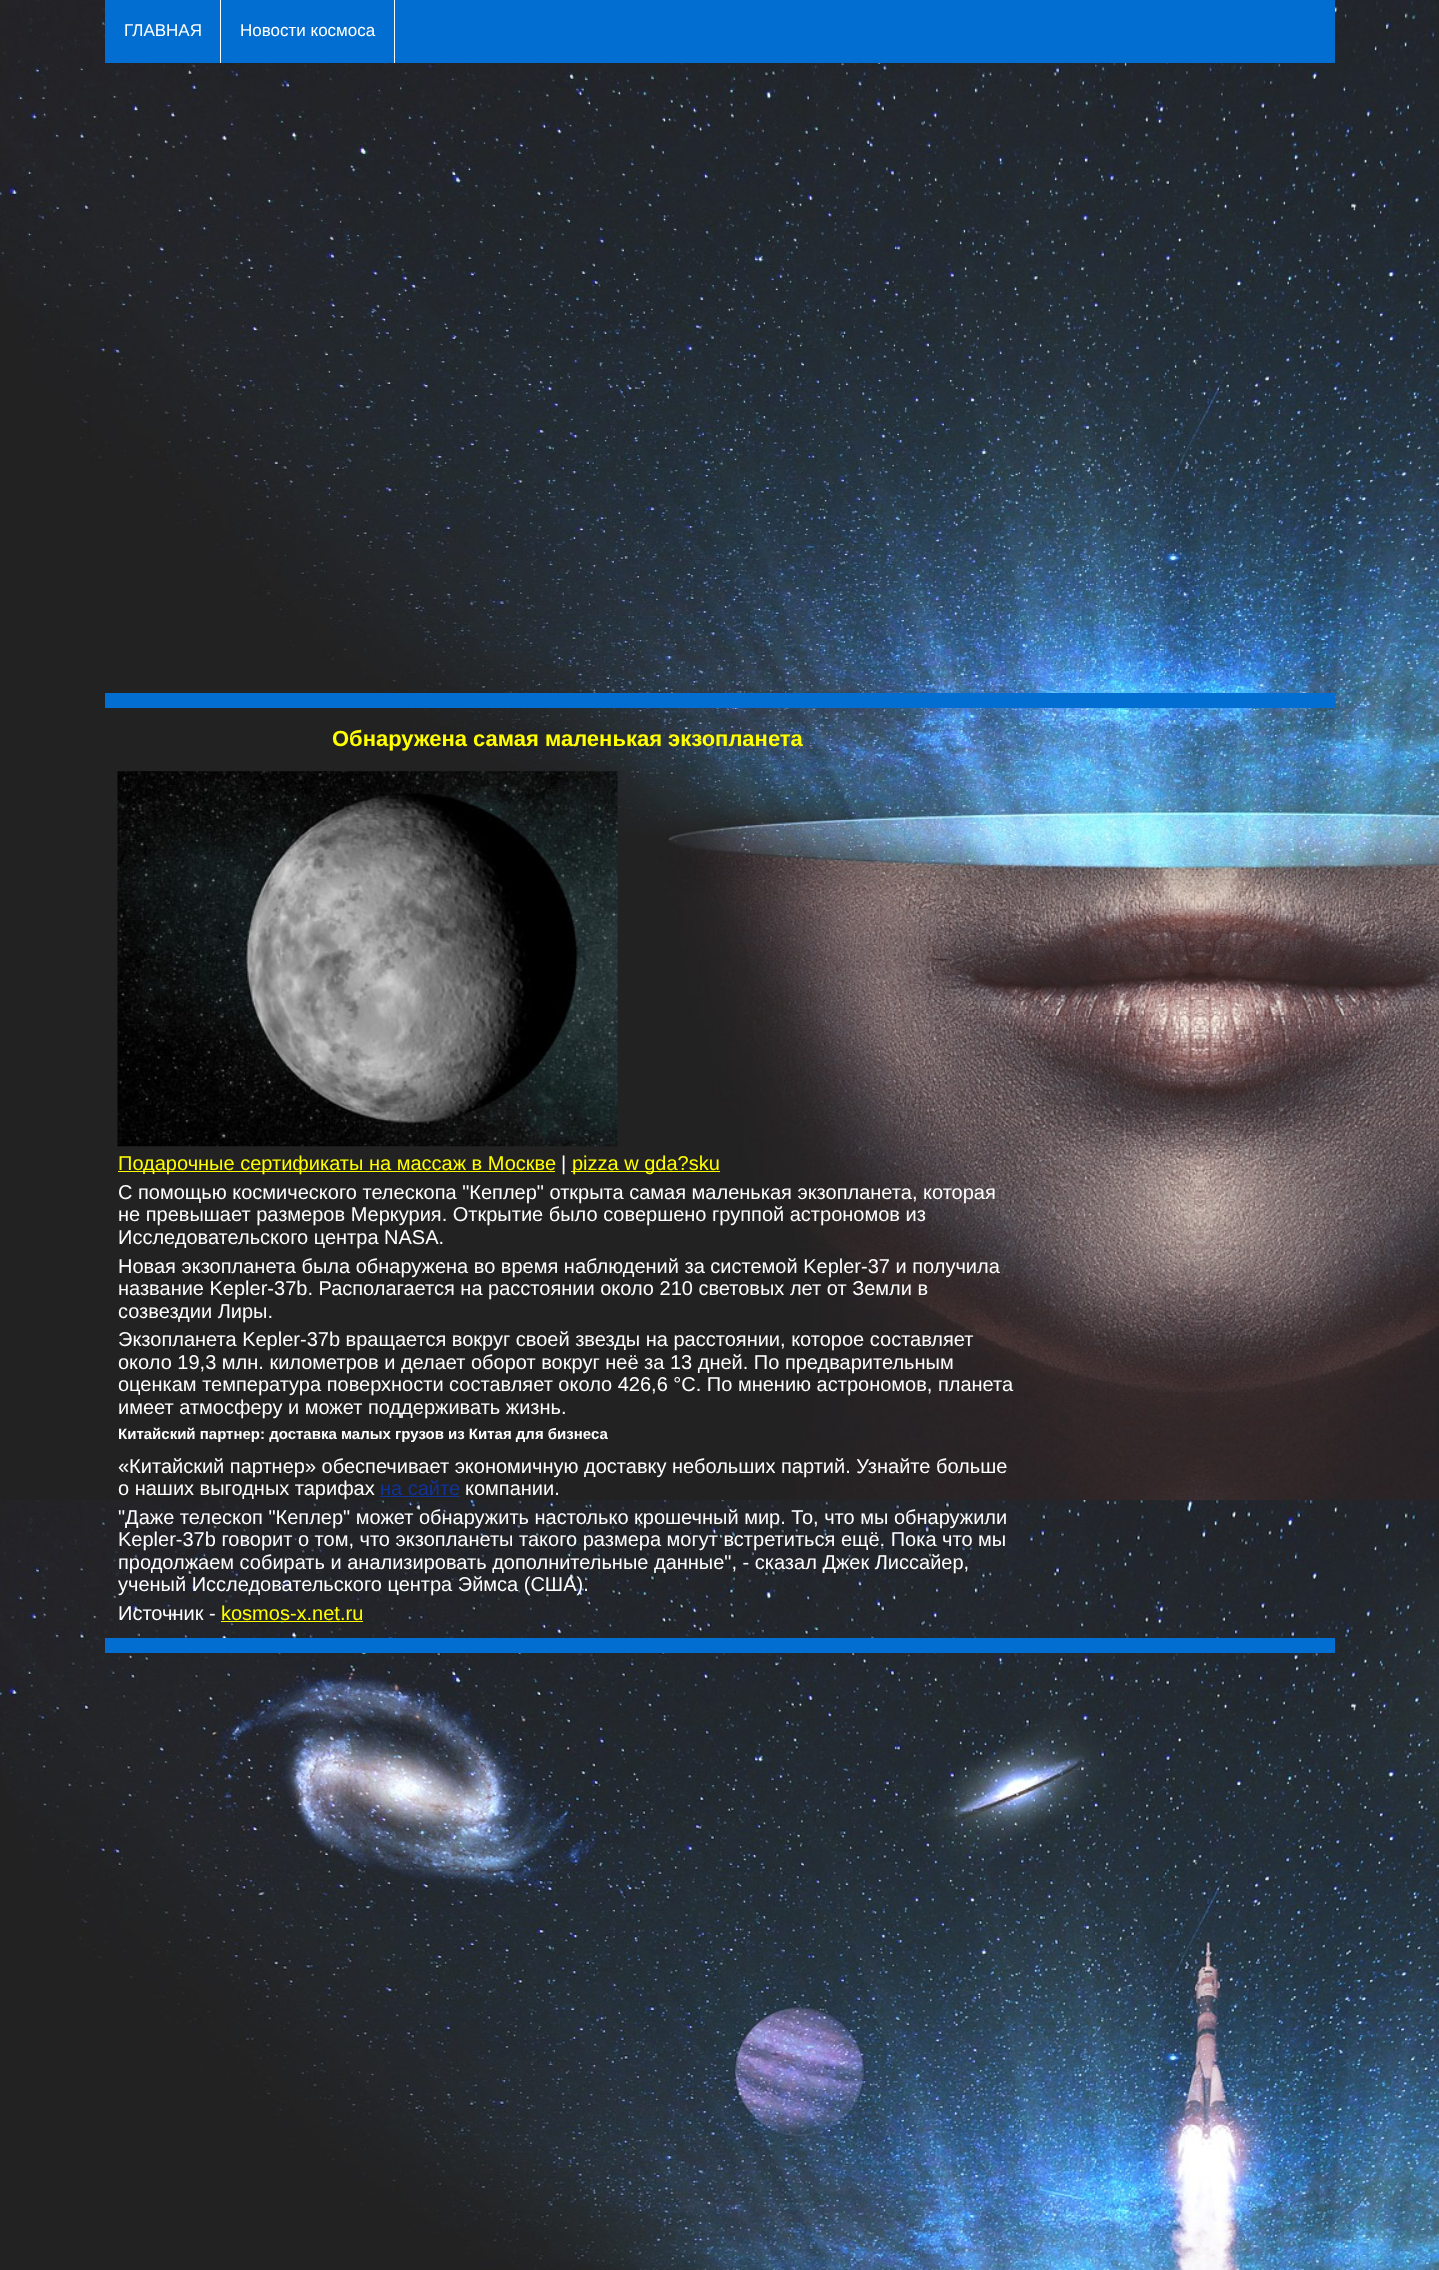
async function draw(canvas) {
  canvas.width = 1439
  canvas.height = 2270
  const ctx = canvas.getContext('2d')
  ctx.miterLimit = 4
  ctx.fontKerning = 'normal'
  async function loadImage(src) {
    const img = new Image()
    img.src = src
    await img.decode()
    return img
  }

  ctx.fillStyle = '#fff'
  ctx.fillRect(0, 0, 1439, 2270)
  ctx.drawImage(await loadImage('image0.png'), 0, 1500, 1439, 770)
  ctx.drawImage(await loadImage('image1.png'), 0, 0, 1439, 1500)
  ctx.fillStyle = '#026ed1'
  ctx.fillRect(105, 0, 1230, 63)
  ctx.fillStyle = '#fff'
  ctx.fillRect(220, 0, 1, 63)
  ctx.font = '17px Liberation Sans'
  ctx.fillText('ГЛАВНАЯ', 124, 36)
  ctx.fillRect(394, 0, 1, 63)
  ctx.fillText('Новости космоса', 240, 36)
  ctx.fillStyle = '#026ed1'
  ctx.fillRect(105, 693, 1230, 15)
  ctx.font = 'bold 22px Liberation Sans'
  ctx.fillStyle = '#ff0'
  ctx.fillText('Обнаружена самая маленькая экзопланета', 332, 746)
  ctx.drawImage(await loadImage('image2.png'), 117, 771, 501, 376)
  ctx.fillRect(118, 1171, 437, 1)
  ctx.font = '20px Liberation Sans'
  ctx.fillText('Подарочные сертификаты на массаж в Москве', 118, 1170)
  ctx.fillStyle = '#fff'
  ctx.fillText('|', 561, 1170)
  ctx.fillStyle = '#ff0'
  ctx.fillRect(571, 1171, 149, 1)
  ctx.fillText('pizza w gda?sku', 572, 1170)
  ctx.fillStyle = '#fff'
  ctx.fillText('С помощью космического телескопа "Кеплер" открыта самая маленькая экзопланета, которая', 118, 1199)
  ctx.fillText('не превышает размеров Меркурия. Открытие было совершено группой астрономов из', 118, 1221)
  ctx.fillText('Исследовательского центра NASA.', 118, 1244)
  ctx.fillText('Новая экзопланета была обнаружена во время наблюдений за системой Kepler-37 и получила', 118, 1273)
  ctx.fillText('название Kepler-37b. Располагается на расстоянии около 210 световых лет от Земли в', 118, 1295)
  ctx.fillText('созвездии Лиры.', 118, 1318)
  ctx.fillText('Экзопланета Kepler-37b вращается вокруг своей звезды на расстоянии, которое составляет', 118, 1346)
  ctx.fillText('около 19,3 млн. километров и делает оборот вокруг неё за 13 дней. По предварительным', 118, 1369)
  ctx.fillText('оценкам температура поверхности составляет около 426,6 °C. По мнению астрономов, планета', 118, 1391)
  ctx.fillText('имеет атмосферу и может поддерживать жизнь.', 118, 1414)
  ctx.font = 'bold 15px Liberation Sans'
  ctx.fillText('Китайский партнер: доставка малых грузов из Китая для бизнеса', 118, 1439)
  ctx.font = '20px Liberation Sans'
  ctx.fillText('«Китайский партнер» обеспечивает экономичную доставку небольших партий. Узнайте больше', 118, 1473)
  ctx.fillText('о наших выгодных тарифах', 118, 1495)
  ctx.fillStyle = '#103399'
  ctx.fillText('на сайте', 380, 1495)
  ctx.fillRect(380, 1496, 80, 1)
  ctx.fillStyle = '#fff'
  ctx.fillText('компании.', 465, 1495)
  ctx.fillText('"Даже телескоп "Кеплер" может обнаружить настолько крошечный мир. То, что мы обнаружили', 118, 1524)
  ctx.fillText('Kepler-37b говорит о том, что экзопланеты такого размера могут встретиться ещё. Пока что мы', 118, 1546)
  ctx.fillText('продолжаем собирать и анализировать дополнительные данные", - сказал Джек Лиссайер,', 118, 1569)
  ctx.fillText('ученый Исследовательского центра Эймса (США).', 118, 1591)
  ctx.fillText('Источник -', 118, 1620)
  ctx.fillStyle = '#ff0'
  ctx.fillText('kosmos-x.net.ru', 221, 1620)
  ctx.fillRect(221, 1621, 142, 1)
  ctx.fillStyle = '#026ed1'
  ctx.fillRect(105, 1638, 1230, 15)
}

draw(document.querySelector('canvas'))
